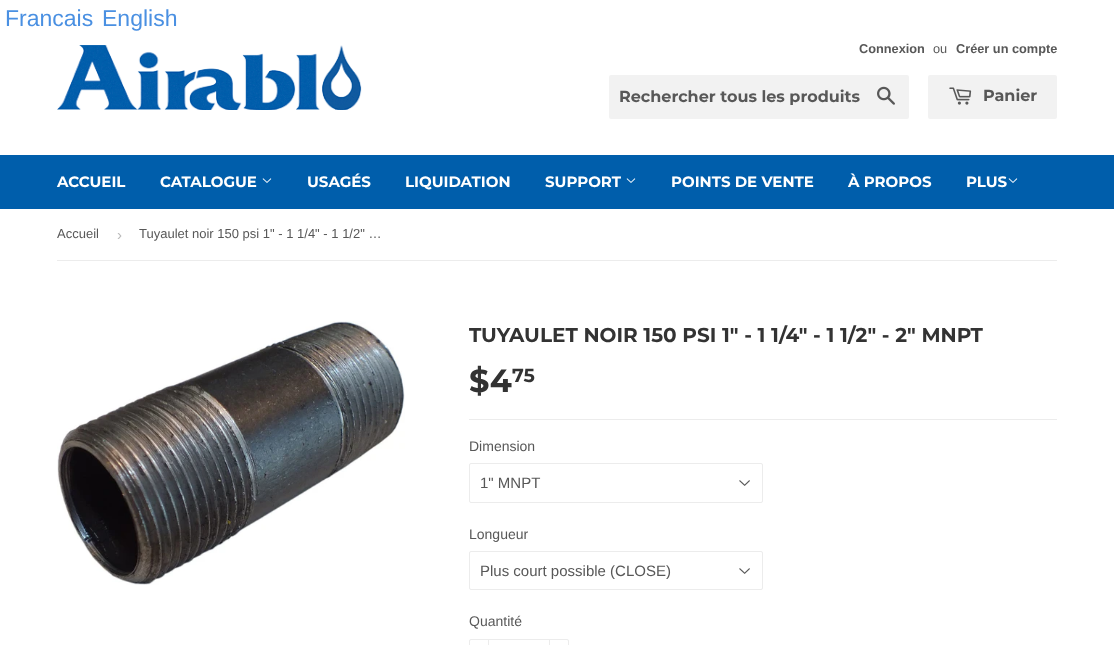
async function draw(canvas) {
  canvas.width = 1114
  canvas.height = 645
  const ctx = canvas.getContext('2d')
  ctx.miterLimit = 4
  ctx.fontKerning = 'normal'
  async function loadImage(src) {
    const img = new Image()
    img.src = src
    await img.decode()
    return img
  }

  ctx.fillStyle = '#fff'
  ctx.fillRect(0, 0, 1114, 645)
  ctx.font = '23px Liberation Sans'
  ctx.fillStyle = '#4a90e2'
  ctx.fillText('Francais', 5, 26)
  ctx.fillText('English', 102, 26)
  ctx.drawImage(await loadImage('image0.png'), 57, 45, 305, 65)
  ctx.font = 'bold 12.75px Liberation Sans'
  ctx.fillStyle = '#585858'
  ctx.fillText('Connexion', 859, 53)
  ctx.font = '12.75px Liberation Sans'
  ctx.fillText('ou', 933, 53)
  ctx.font = 'bold 12.75px Liberation Sans'
  ctx.fillText('Créer un compte', 956, 53)
  ctx.fillStyle = '#f2f2f2'
  ctx.beginPath()
  ctx.roundRect(609, 75, 300, 44, 2)
  ctx.fill()
  ctx.font = '100 16px Montserrat'
  ctx.fillStyle = '#585858'
  ctx.fillText('Rechercher tous les produits', 619, 102)
  ctx.drawImage(await loadImage('image1.png'), 877, 86, 18, 19)
  ctx.fillStyle = '#f2f2f2'
  ctx.beginPath()
  ctx.roundRect(928, 75, 129, 44, 2)
  ctx.fill()
  ctx.drawImage(await loadImage('image2.png'), 949, 87, 23, 18)
  ctx.fillStyle = '#585858'
  ctx.fillText('Panier', 983, 101)
  ctx.fillStyle = '#005eab'
  ctx.fillRect(0, 155, 1114, 54)
  ctx.font = '100 15px Montserrat'
  ctx.fillStyle = '#fff'
  ctx.fillText('ACCUEIL', 57, 187)
  ctx.fillText('CATALOGUE', 160, 187)
  ctx.drawImage(await loadImage('image3.png'), 262, 178, 10, 5)
  ctx.fillText('USAGÉS', 307, 187)
  ctx.fillText('LIQUIDATION', 405, 187)
  ctx.fillText('SUPPORT', 545, 187)
  ctx.drawImage(await loadImage('image3.png'), 626, 178, 10, 5)
  ctx.fillText('POINTS DE VENTE', 671, 187)
  ctx.fillText('À PROPOS', 848, 187)
  ctx.fillText('PLUS', 966, 187)
  ctx.drawImage(await loadImage('image3.png'), 1008, 178, 10, 5)
  ctx.fillStyle = '#ececec'
  ctx.fillRect(57, 260, 1000, 1)
  ctx.font = '13px Liberation Sans'
  ctx.fillStyle = '#585858'
  ctx.fillText('Accueil', 57, 238)
  ctx.font = '15px Liberation Sans'
  ctx.fillStyle = '#bbb'
  ctx.fillText('›', 117, 240)
  ctx.font = '13px Liberation Sans'
  ctx.fillStyle = '#585858'
  ctx.fillText('Tuyaulet noir 150 psi 1" - 1 1/4" - 1 1/2" …', 139, 238)
  ctx.drawImage(await loadImage('image4.png'), 57, 321, 348, 264)
  ctx.font = '100 20px Montserrat'
  ctx.fillStyle = '#333'
  ctx.fillText('TUYAULET NOIR 150 PSI 1" - 1 1/4" - 1 1/2" - 2" MNPT', 469, 342)
  ctx.font = '100 32px Montserrat'
  ctx.fillText('$4', 469, 392)
  ctx.font = '100 19px Montserrat'
  ctx.fillText('75', 512, 382)
  ctx.fillStyle = '#ececec'
  ctx.fillRect(469, 419, 588, 1)
  ctx.font = '14px Liberation Sans'
  ctx.fillStyle = '#585858'
  ctx.fillText('Dimension', 469, 451)
  ctx.drawImage(await loadImage('image5.png'), 739, 480, 11, 6)
  ctx.beginPath()
  ctx.roundRect(469.5, 463.5, 293, 39, 1.5)
  ctx.strokeStyle = '#ececec'
  ctx.stroke()
  ctx.font = '15px Liberation Sans'
  ctx.fillText('1" MNPT', 480, 488)
  ctx.font = '14px Liberation Sans'
  ctx.fillText('Longueur', 469, 539)
  ctx.drawImage(await loadImage('image5.png'), 739, 568, 11, 6)
  ctx.beginPath()
  ctx.roundRect(469.5, 551.5, 293, 38, 1.5)
  ctx.stroke()
  ctx.font = '15px Liberation Sans'
  ctx.fillText('Plus court possible (CLOSE)', 480, 576)
  ctx.font = '14px Liberation Sans'
  ctx.fillText('Quantité', 469, 626)
  ctx.beginPath()
  ctx.roundRect(469.5, 639.5, 99, 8, 1.5)
  ctx.stroke()
  ctx.fillStyle = '#ececec'
  ctx.fillRect(488, 639, 1, 6)
  ctx.fillRect(549, 639, 1, 6)
}

draw(document.querySelector('canvas'))
